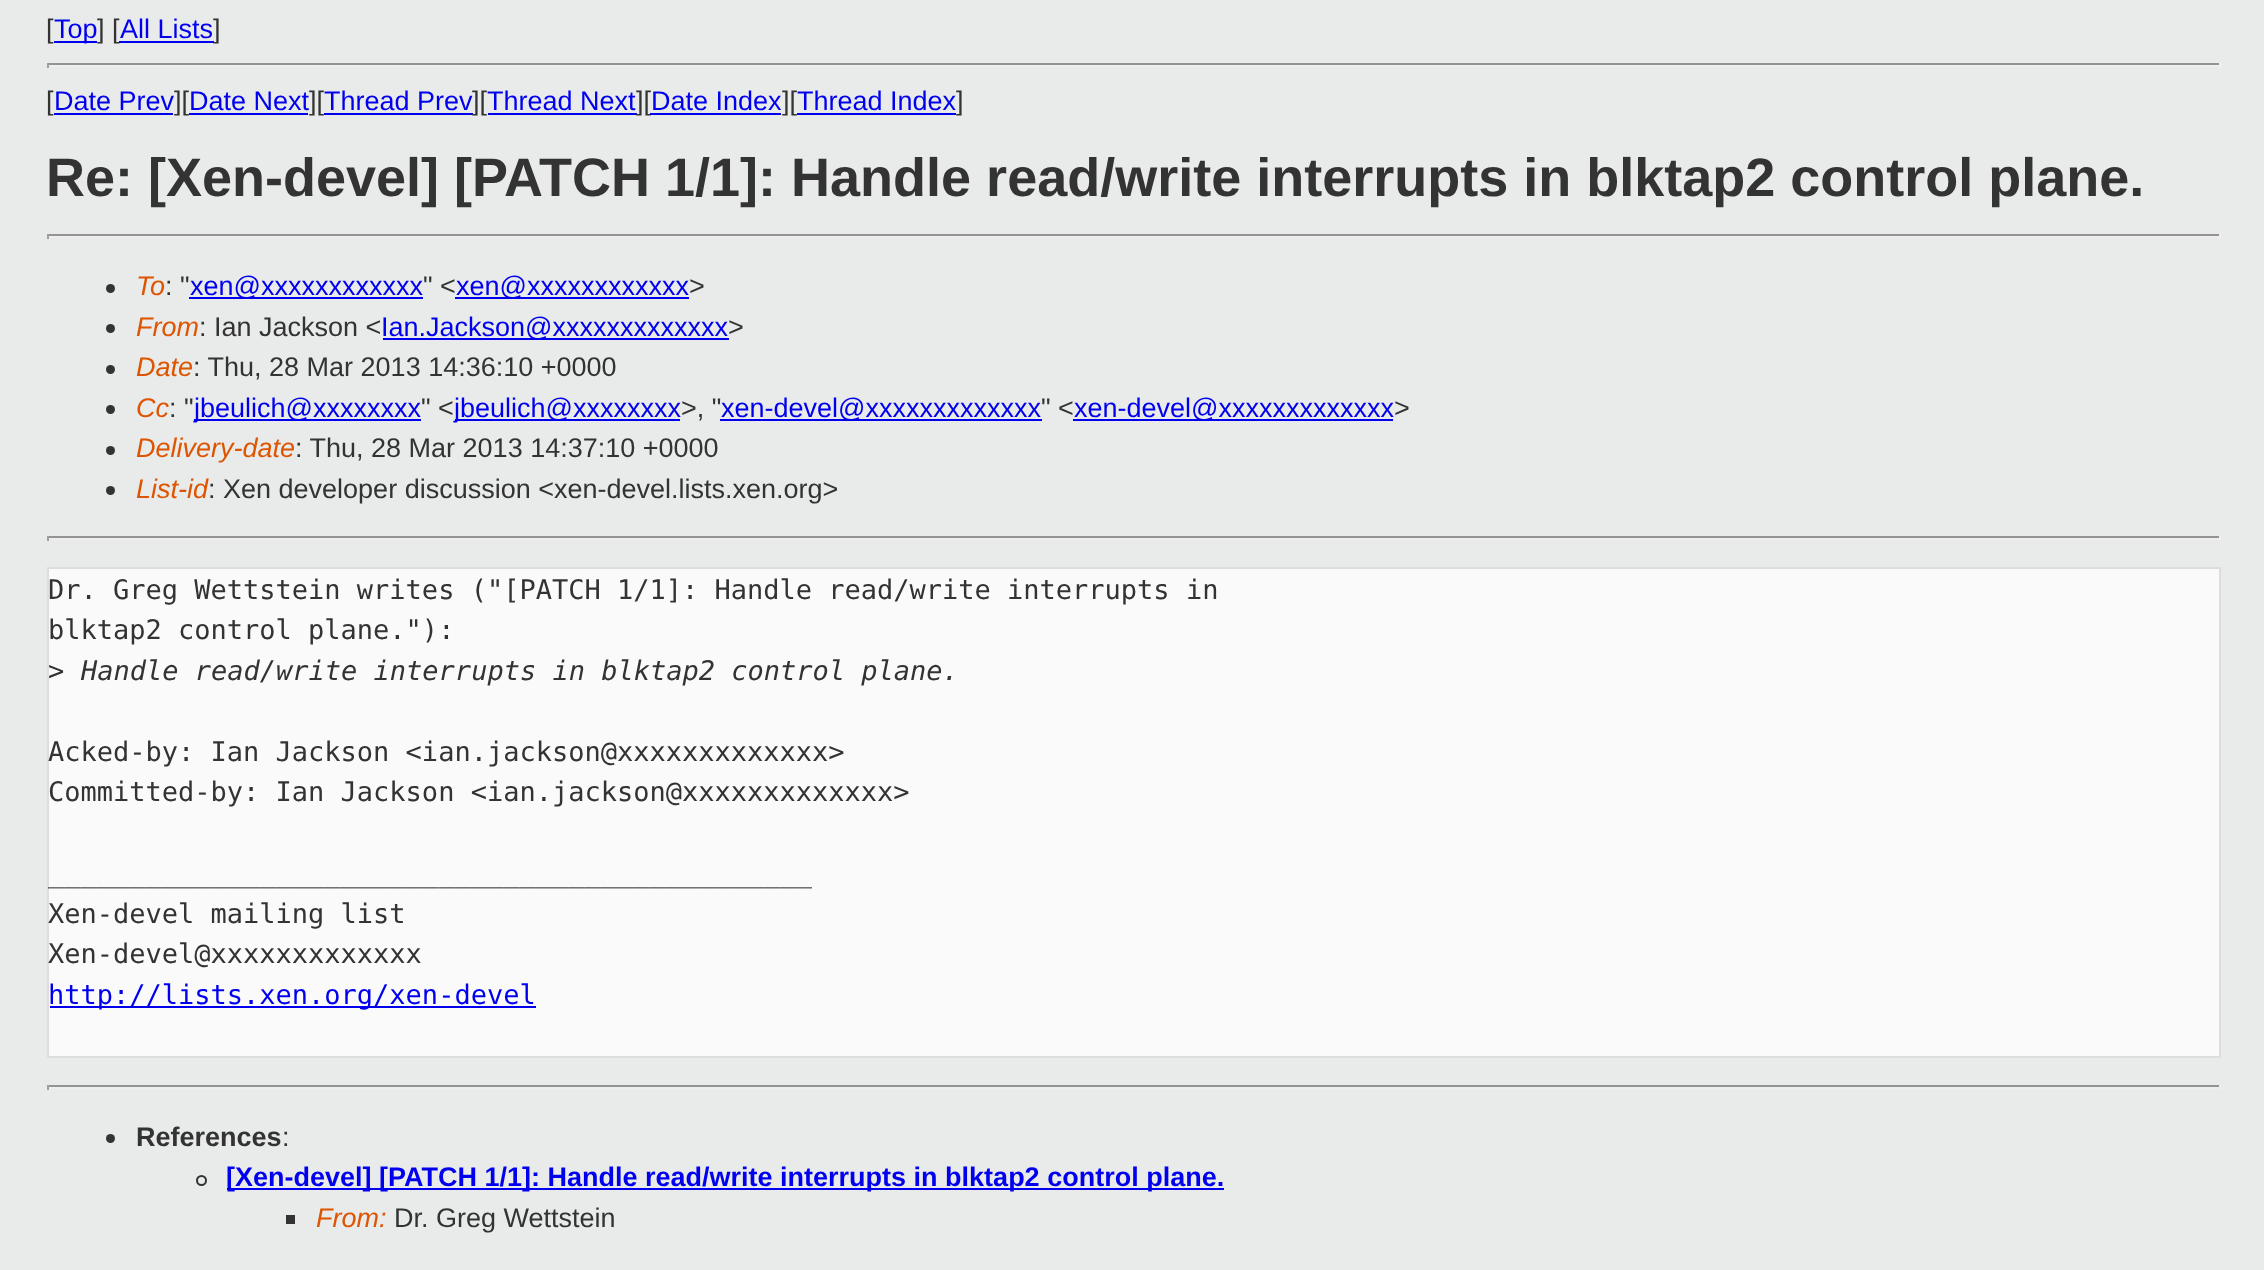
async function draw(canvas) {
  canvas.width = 2264
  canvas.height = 1270
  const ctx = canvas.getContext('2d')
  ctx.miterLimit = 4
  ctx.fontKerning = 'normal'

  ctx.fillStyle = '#e9eaea'
  ctx.fillRect(0, 0, 2264, 1270)
  ctx.font = '27px Liberation Sans'
  ctx.fillStyle = '#333'
  ctx.fillText('[', 46, 38)
  ctx.fillStyle = '#00e'
  ctx.fillRect(54, 41, 43, 2)
  ctx.fillText('Top', 54, 38)
  ctx.fillStyle = '#333'
  ctx.fillText('] [', 97, 38)
  ctx.fillStyle = '#00e'
  ctx.fillText('All Lists', 120, 38)
  ctx.fillRect(119, 41, 95, 2)
  ctx.fillStyle = '#333'
  ctx.fillText(']', 213, 38)
  ctx.fillStyle = '#939393'
  ctx.fillRect(47, 63, 2174, 2)
  ctx.fillStyle = '#eee'
  ctx.fillRect(2219, 63, 2, 5)
  ctx.fillRect(47, 65, 2174, 2)
  ctx.fillStyle = '#9f9f9f'
  ctx.fillRect(47, 63, 2, 5)
  ctx.fillStyle = '#333'
  ctx.fillText('[', 46, 110)
  ctx.fillStyle = '#00e'
  ctx.fillText('Date Prev', 54, 110)
  ctx.fillRect(54, 113, 119, 2)
  ctx.fillStyle = '#333'
  ctx.fillText('][', 174, 110)
  ctx.fillStyle = '#00e'
  ctx.fillText('Date Next', 189, 110)
  ctx.fillRect(189, 113, 119, 2)
  ctx.fillStyle = '#333'
  ctx.fillText('][', 309, 110)
  ctx.fillStyle = '#00e'
  ctx.fillText('Thread Prev', 324, 110)
  ctx.fillRect(324, 113, 149, 2)
  ctx.fillStyle = '#333'
  ctx.fillText('][', 472, 110)
  ctx.fillStyle = '#00e'
  ctx.fillText('Thread Next', 487, 110)
  ctx.fillRect(488, 113, 149, 2)
  ctx.fillStyle = '#333'
  ctx.fillText('][', 636, 110)
  ctx.fillStyle = '#00e'
  ctx.fillText('Date Index', 651, 110)
  ctx.fillRect(650, 113, 131, 2)
  ctx.fillStyle = '#333'
  ctx.fillText('][', 782, 110)
  ctx.fillStyle = '#00e'
  ctx.fillText('Thread Index', 797, 110)
  ctx.fillRect(797, 113, 159, 2)
  ctx.fillStyle = '#333'
  ctx.fillText(']', 956, 110)
  ctx.font = 'bold 54px Liberation Sans'
  ctx.fillText('Re: [Xen-devel] [PATCH 1/1]: Handle read/write interrupts in blktap2 control plane.', 46, 196)
  ctx.fillStyle = '#939393'
  ctx.fillRect(47, 234, 2174, 2)
  ctx.fillStyle = '#eee'
  ctx.fillRect(2219, 234, 2, 5)
  ctx.fillRect(47, 236, 2174, 2)
  ctx.fillStyle = '#9f9f9f'
  ctx.fillRect(47, 234, 2, 5)
  ctx.fillStyle = '#333'
  ctx.beginPath()
  ctx.arc(110.5, 288.5, 4.5, 0, 2 * Math.PI)
  ctx.fill()
  ctx.font = 'italic 27px Liberation Sans'
  ctx.fillStyle = '#d50'
  ctx.fillText('To', 136, 295)
  ctx.font = '27px Liberation Sans'
  ctx.fillStyle = '#333'
  ctx.fillText(': "', 165, 295)
  ctx.fillStyle = '#00e'
  ctx.fillRect(189, 297, 234, 2)
  ctx.fillText('xen@xxxxxxxxxxxx', 190, 295)
  ctx.fillStyle = '#333'
  ctx.fillText('" <', 423, 295)
  ctx.fillStyle = '#00e'
  ctx.fillRect(455, 297, 234, 2)
  ctx.fillText('xen@xxxxxxxxxxxx', 456, 295)
  ctx.fillStyle = '#333'
  ctx.fillText('>', 689, 295)
  ctx.beginPath()
  ctx.arc(110.5, 328.5, 4.5, 0, 2 * Math.PI)
  ctx.fill()
  ctx.font = 'italic 27px Liberation Sans'
  ctx.fillStyle = '#d50'
  ctx.fillText('From', 136, 336)
  ctx.font = '27px Liberation Sans'
  ctx.fillStyle = '#333'
  ctx.fillText(': Ian Jackson <', 199, 336)
  ctx.fillStyle = '#00e'
  ctx.fillRect(383, 338, 346, 2)
  ctx.fillText('Ian.Jackson@xxxxxxxxxxxxx', 381, 336)
  ctx.fillStyle = '#333'
  ctx.fillText('>', 728, 336)
  ctx.beginPath()
  ctx.arc(110.5, 369.5, 4.5, 0, 2 * Math.PI)
  ctx.fill()
  ctx.font = 'italic 27px Liberation Sans'
  ctx.fillStyle = '#d50'
  ctx.fillText('Date', 136, 376)
  ctx.font = '27px Liberation Sans'
  ctx.fillStyle = '#333'
  ctx.fillText(': Thu, 28 Mar 2013 14:36:10 +0000', 193, 376)
  ctx.beginPath()
  ctx.arc(110.5, 409.5, 4.5, 0, 2 * Math.PI)
  ctx.fill()
  ctx.font = 'italic 27px Liberation Sans'
  ctx.fillStyle = '#d50'
  ctx.fillText('Cc', 136, 417)
  ctx.font = '27px Liberation Sans'
  ctx.fillStyle = '#333'
  ctx.fillText(': "', 169, 417)
  ctx.fillStyle = '#00e'
  ctx.fillRect(194, 419, 227, 2)
  ctx.fillText('jbeulich@xxxxxxxx', 194, 417)
  ctx.fillStyle = '#333'
  ctx.fillText('" <', 421, 417)
  ctx.fillStyle = '#00e'
  ctx.fillRect(455, 419, 225, 2)
  ctx.fillText('jbeulich@xxxxxxxx', 454, 417)
  ctx.fillStyle = '#333'
  ctx.fillText('>, "', 681, 417)
  ctx.fillStyle = '#00e'
  ctx.fillRect(720, 419, 322, 2)
  ctx.fillText('xen-devel@xxxxxxxxxxxxx', 721, 417)
  ctx.fillStyle = '#333'
  ctx.fillText('" <', 1041, 417)
  ctx.fillStyle = '#00e'
  ctx.fillRect(1073, 419, 320, 2)
  ctx.fillText('xen-devel@xxxxxxxxxxxxx', 1074, 417)
  ctx.fillStyle = '#333'
  ctx.fillText('>', 1394, 417)
  ctx.beginPath()
  ctx.arc(110.5, 450.5, 4.5, 0, 2 * Math.PI)
  ctx.fill()
  ctx.font = 'italic 27px Liberation Sans'
  ctx.fillStyle = '#d50'
  ctx.fillText('Delivery-date', 136, 457)
  ctx.font = '27px Liberation Sans'
  ctx.fillStyle = '#333'
  ctx.fillText(': Thu, 28 Mar 2013 14:37:10 +0000', 295, 457)
  ctx.beginPath()
  ctx.arc(110.5, 490.5, 4.5, 0, 2 * Math.PI)
  ctx.fill()
  ctx.font = 'italic 27px Liberation Sans'
  ctx.fillStyle = '#d50'
  ctx.fillText('List-id', 136, 498)
  ctx.font = '27px Liberation Sans'
  ctx.fillStyle = '#333'
  ctx.fillText(': Xen developer discussion <xen-devel.lists.xen.org>', 208, 498)
  ctx.fillStyle = '#939393'
  ctx.fillRect(47, 536, 2174, 2)
  ctx.fillStyle = '#eee'
  ctx.fillRect(2219, 536, 2, 5)
  ctx.fillRect(47, 538, 2174, 2)
  ctx.fillStyle = '#9f9f9f'
  ctx.fillRect(47, 536, 2, 5)
  ctx.fillStyle = '#fafafa'
  ctx.beginPath()
  ctx.rect(48, 568, 2172, 489)
  ctx.fill()
  ctx.strokeStyle = '#ddd'
  ctx.lineWidth = 2
  ctx.stroke()
  ctx.font = '27px DejaVu Sans Mono'
  ctx.fillStyle = '#333'
  ctx.fillText('Dr. Greg Wettstein writes ("[PATCH 1/1]: Handle read/write interrupts in', 48, 599)
  ctx.fillText('blktap2 control plane."):', 48, 639)
  ctx.fillText('>', 48, 680)
  ctx.font = 'italic 27px DejaVu Sans Mono'
  ctx.fillText('Handle read/write interrupts in blktap2 control plane.', 81, 680)
  ctx.font = '27px DejaVu Sans Mono'
  ctx.fillText('Acked-by: Ian Jackson <ian.jackson@xxxxxxxxxxxxx>', 48, 761)
  ctx.fillText('Committed-by: Ian Jackson <ian.jackson@xxxxxxxxxxxxx>', 48, 801)
  ctx.fillText('_______________________________________________', 48, 882)
  ctx.fillText('Xen-devel mailing list', 48, 923)
  ctx.fillText('Xen-devel@xxxxxxxxxxxxx', 48, 963)
  ctx.fillStyle = '#00e'
  ctx.fillRect(50, 1006, 486, 2)
  ctx.fillText('http://lists.xen.org/xen-devel', 48, 1004)
  ctx.fillStyle = '#939393'
  ctx.fillRect(47, 1085, 2174, 2)
  ctx.fillStyle = '#eee'
  ctx.fillRect(2219, 1085, 2, 5)
  ctx.fillRect(47, 1087, 2174, 2)
  ctx.fillStyle = '#9f9f9f'
  ctx.fillRect(47, 1085, 2, 5)
  ctx.fillStyle = '#333'
  ctx.beginPath()
  ctx.arc(110.5, 1138.5, 4.5, 0, 2 * Math.PI)
  ctx.fill()
  ctx.font = 'bold 27px Liberation Sans'
  ctx.fillText('References', 136, 1146)
  ctx.font = '27px Liberation Sans'
  ctx.fillText(':', 282, 1146)
  ctx.beginPath()
  ctx.arc(201.5, 1180.5, 4.5, 0, 2 * Math.PI)
  ctx.strokeStyle = '#333'
  ctx.stroke()
  ctx.fillStyle = '#00e'
  ctx.fillRect(227, 1188, 997, 2)
  ctx.font = 'bold 27px Liberation Sans'
  ctx.fillText('[Xen-devel] [PATCH 1/1]: Handle read/write interrupts in blktap2 control plane.', 226, 1186)
  ctx.fillStyle = '#333'
  ctx.fillRect(286, 1215, 9, 9)
  ctx.font = 'italic 27px Liberation Sans'
  ctx.fillStyle = '#d50'
  ctx.fillText('From:', 316, 1227)
  ctx.font = '27px Liberation Sans'
  ctx.fillStyle = '#333'
  ctx.fillText('Dr. Greg Wettstein', 394, 1227)
}

draw(document.querySelector('canvas'))
